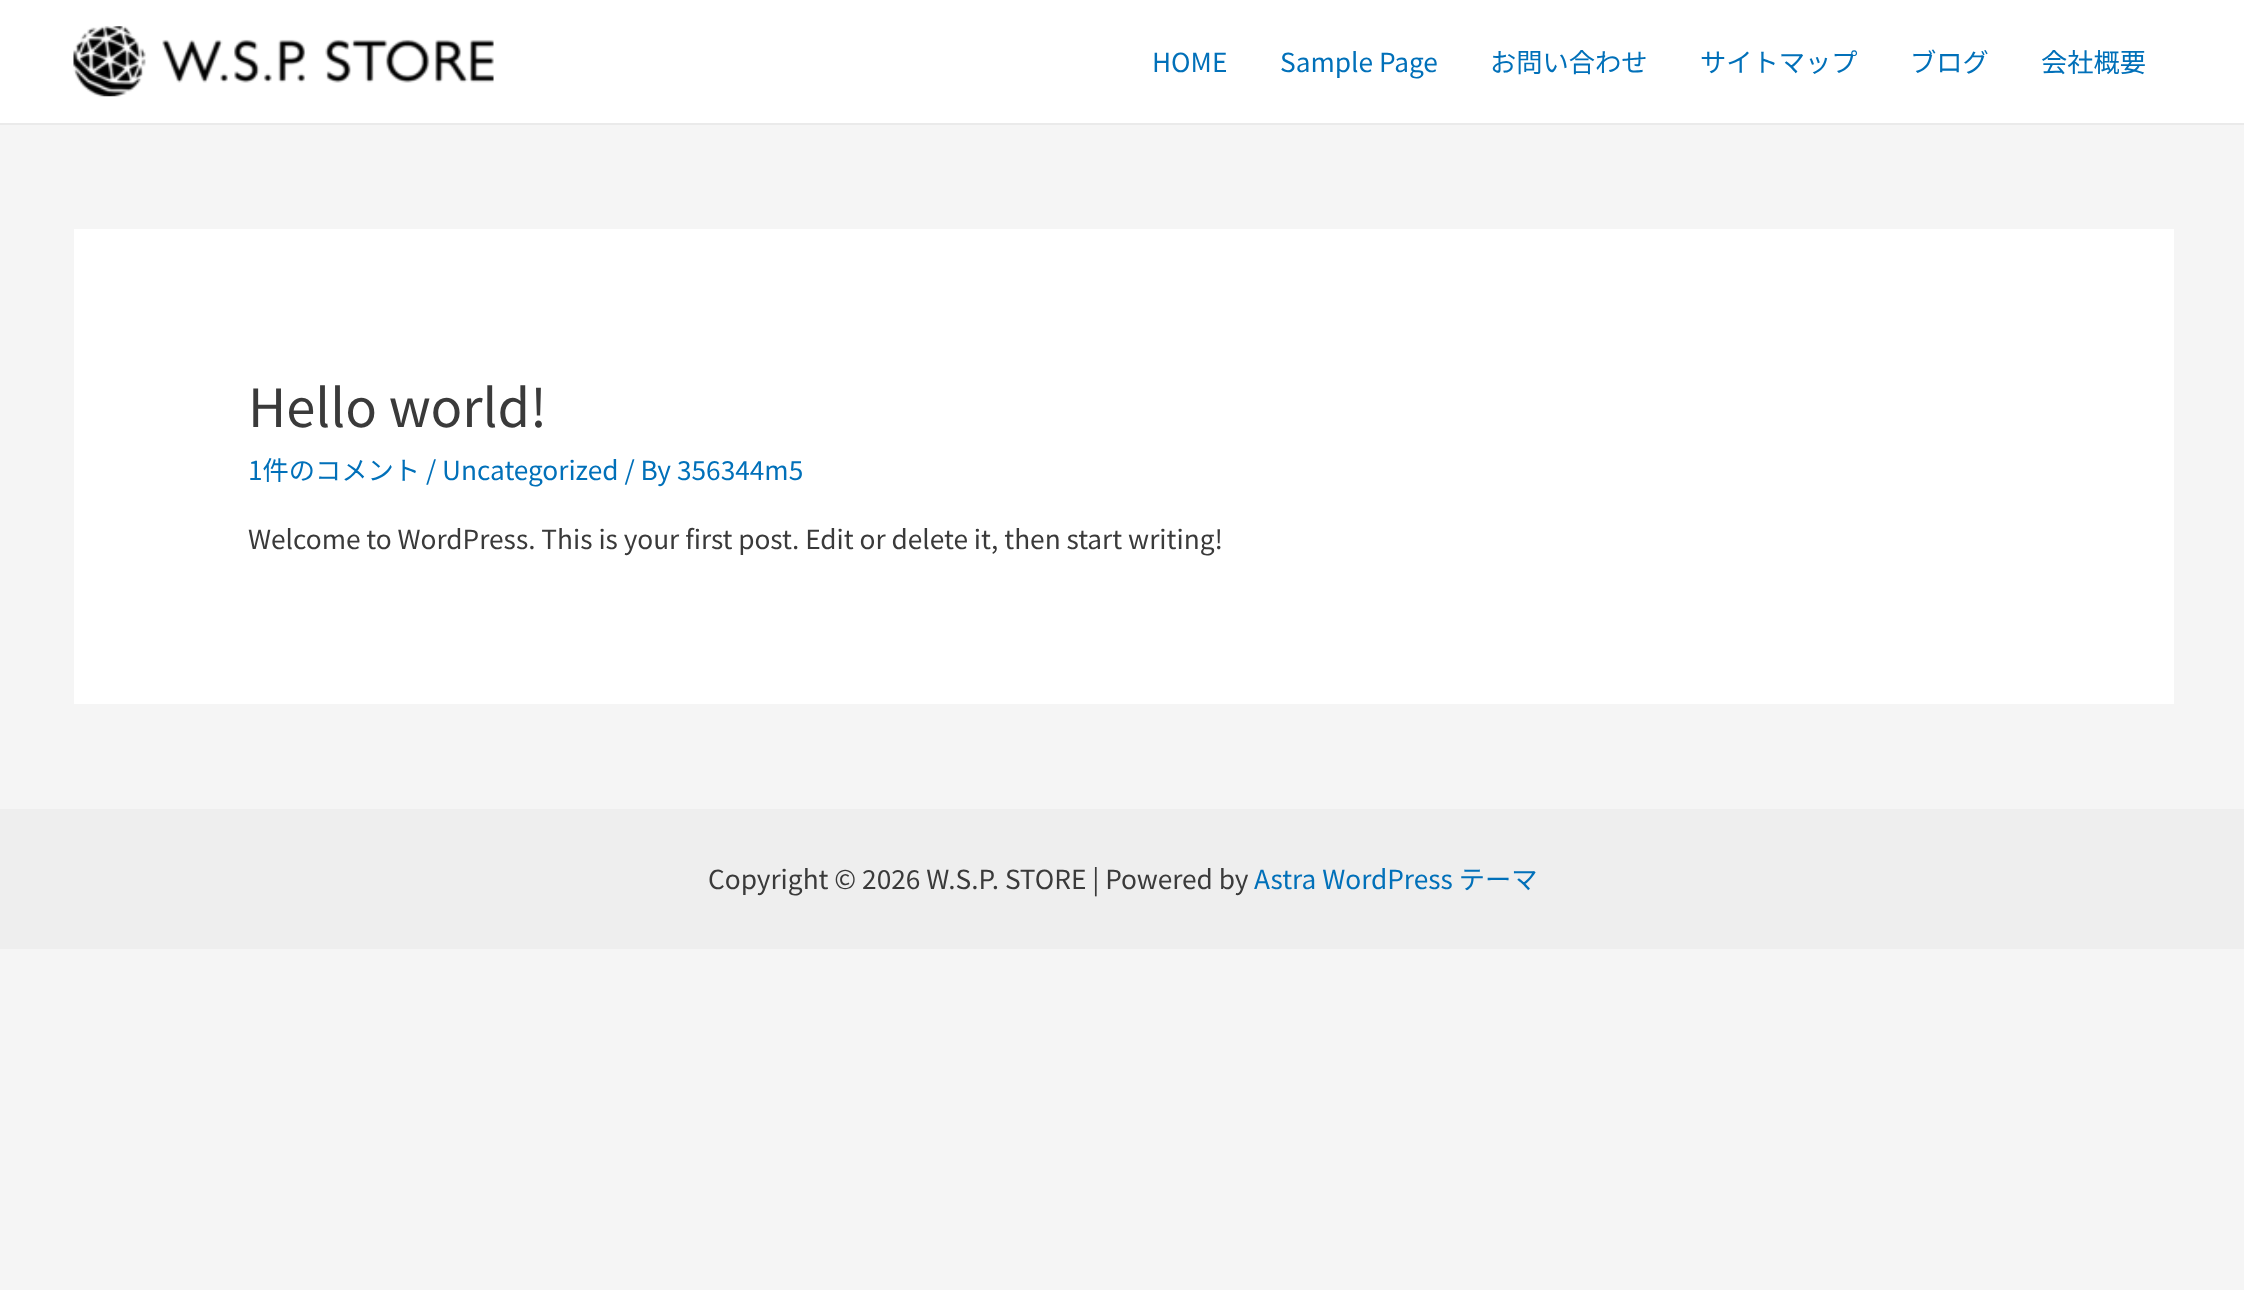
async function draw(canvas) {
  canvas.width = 2244
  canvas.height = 1290
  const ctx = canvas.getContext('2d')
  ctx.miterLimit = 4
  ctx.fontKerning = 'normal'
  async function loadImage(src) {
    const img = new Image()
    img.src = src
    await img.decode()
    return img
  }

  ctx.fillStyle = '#f5f5f5'
  ctx.fillRect(0, 0, 2244, 1290)
  ctx.fillStyle = '#fff'
  ctx.fillRect(0, 0, 2244, 123)
  ctx.fillStyle = '#eaeaea'
  ctx.fillRect(0, 123, 2244, 2)
  ctx.drawImage(await loadImage('image0.png'), 73, 26, 421, 71)
  ctx.font = '100 26.25px Noto Sans JP'
  ctx.fillStyle = '#0170b9'
  ctx.fillText('HOME', 1152, 72)
  ctx.fillText('Sample Page', 1280, 72)
  ctx.fillText('お問い合わせ', 1490, 72)
  ctx.fillText('サイトマップ', 1700, 72)
  ctx.fillText('ブログ', 1910, 72)
  ctx.fillText('会社概要', 2041, 72)
  ctx.fillStyle = '#fff'
  ctx.fillRect(74, 229, 2100, 475)
  ctx.font = '100 52.5px Noto Sans JP'
  ctx.fillStyle = '#3a3a3a'
  ctx.fillText('Hello world!', 248, 427)
  ctx.font = '100 26.25px Noto Sans JP'
  ctx.fillStyle = '#0170b9'
  ctx.fillText('1件のコメント / Uncategorized / By 356344m5', 248, 480)
  ctx.fillStyle = '#3a3a3a'
  ctx.fillText('Welcome to WordPress. This is your first post. Edit or delete it, then start writing!', 248, 549)
  ctx.fillStyle = '#eee'
  ctx.fillRect(0, 809, 2244, 140)
  ctx.fillStyle = '#3a3a3a'
  ctx.fillText('Copyright © 2026 W.S.P. STORE | Powered by', 708, 889)
  ctx.fillStyle = '#0170b9'
  ctx.fillText('Astra WordPress テーマ', 1254, 889)
}

draw(document.querySelector('canvas'))
